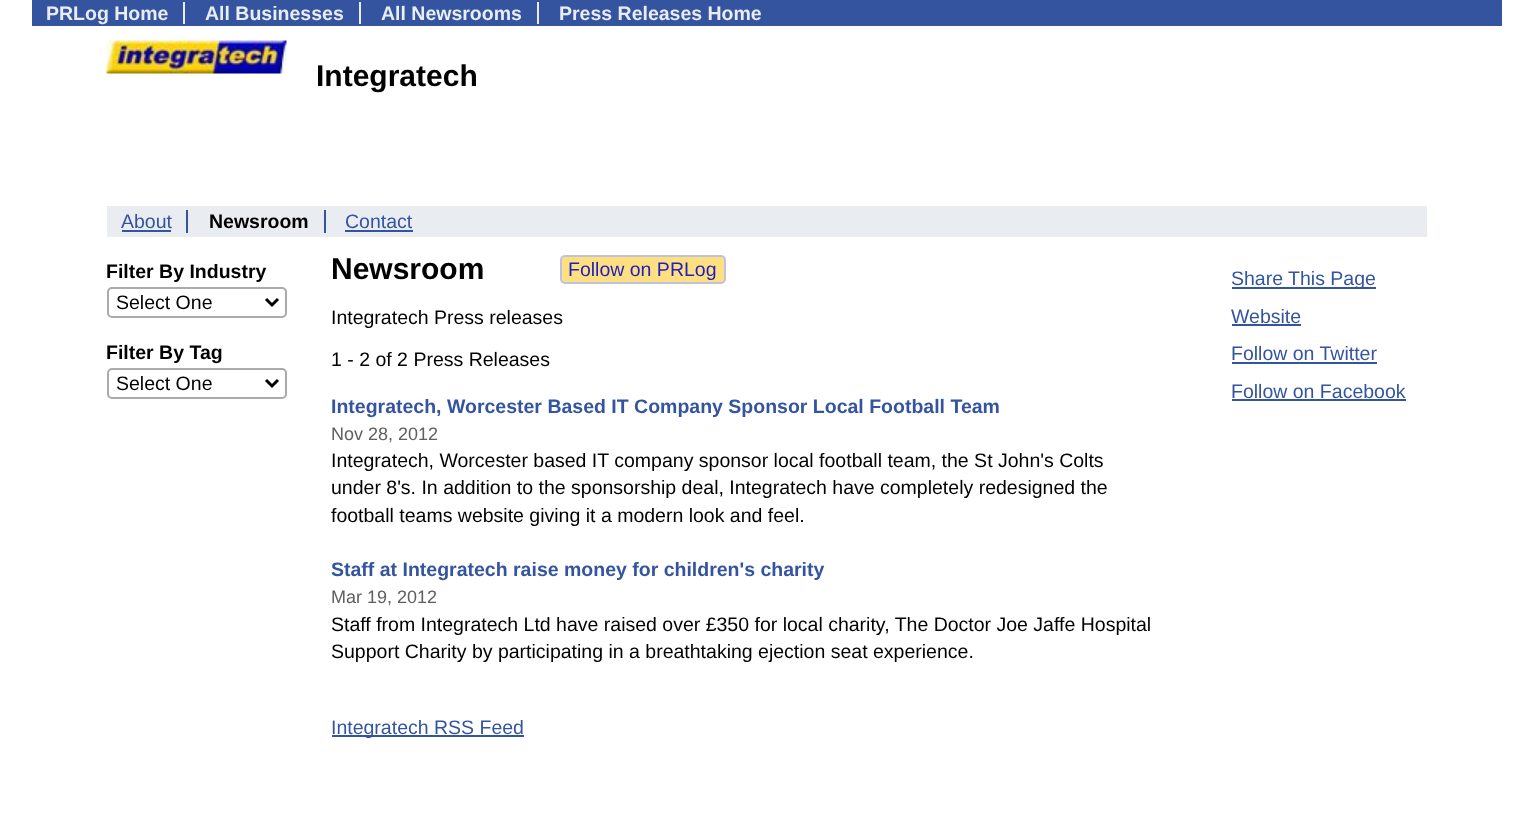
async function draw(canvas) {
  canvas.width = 1531
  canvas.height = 840
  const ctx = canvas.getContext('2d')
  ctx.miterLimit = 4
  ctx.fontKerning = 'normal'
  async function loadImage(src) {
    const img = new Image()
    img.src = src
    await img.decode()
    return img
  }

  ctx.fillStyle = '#fff'
  ctx.fillRect(0, 0, 1531, 840)
  ctx.fillStyle = '#3454a0'
  ctx.fillRect(32, 0, 1470, 26)
  ctx.fillStyle = '#e9edf2'
  ctx.fillRect(183, 2, 2, 22)
  ctx.font = 'bold 19.5px Liberation Sans'
  ctx.fillText('PRLog Home', 46, 20)
  ctx.fillRect(359, 2, 2, 22)
  ctx.fillText('All Businesses', 205, 20)
  ctx.fillRect(537, 2, 2, 22)
  ctx.fillText('All Newsrooms', 381, 20)
  ctx.fillText('Press Releases Home', 559, 20)
  ctx.drawImage(await loadImage('image0.png'), 106, 40, 181, 34)
  ctx.font = 'bold 30px Liberation Sans'
  ctx.fillStyle = '#000'
  ctx.fillText('Integratech', 316, 86)
  ctx.fillStyle = '#e9edf2'
  ctx.fillRect(107, 206, 1320, 31)
  ctx.fillStyle = '#3454a0'
  ctx.fillRect(186, 210, 2, 23)
  ctx.font = '19.5px Liberation Sans'
  ctx.fillText('About', 121, 228)
  ctx.fillRect(122, 230, 49, 2)
  ctx.fillRect(324, 210, 2, 23)
  ctx.font = 'bold 19.5px Liberation Sans'
  ctx.fillStyle = '#000'
  ctx.fillText('Newsroom', 209, 228)
  ctx.font = '19.5px Liberation Sans'
  ctx.fillStyle = '#3454a0'
  ctx.fillText('Contact', 345, 228)
  ctx.fillRect(345, 230, 68, 2)
  ctx.font = 'bold 19.5px Liberation Sans'
  ctx.fillStyle = '#000'
  ctx.fillText('Filter By Industry', 106, 278)
  ctx.beginPath()
  ctx.roundRect(108, 288, 178, 29, 4)
  ctx.strokeStyle = '#aaa'
  ctx.lineWidth = 2
  ctx.stroke()
  ctx.beginPath()
  ctx.moveTo(266, 299)
  ctx.lineTo(272, 305)
  ctx.lineTo(278, 299)
  ctx.strokeStyle = '#000'
  ctx.lineWidth = 3
  ctx.stroke()
  ctx.font = '19.5px Liberation Sans'
  ctx.fillText('Select One', 116, 309)
  ctx.font = 'bold 19.5px Liberation Sans'
  ctx.fillText('Filter By Tag', 106, 359)
  ctx.beginPath()
  ctx.roundRect(108, 369, 178, 29, 4)
  ctx.strokeStyle = '#aaa'
  ctx.lineWidth = 2
  ctx.stroke()
  ctx.beginPath()
  ctx.moveTo(266, 380)
  ctx.lineTo(272, 386)
  ctx.lineTo(278, 380)
  ctx.strokeStyle = '#000'
  ctx.lineWidth = 3
  ctx.stroke()
  ctx.font = '19.5px Liberation Sans'
  ctx.fillText('Select One', 116, 390)
  ctx.font = 'bold 30px Liberation Sans'
  ctx.fillText('Newsroom', 331, 279)
  ctx.fillStyle = '#ffe080'
  ctx.beginPath()
  ctx.roundRect(561, 256, 164, 27, 4)
  ctx.fill()
  ctx.strokeStyle = '#c0c0e0'
  ctx.lineWidth = 2
  ctx.stroke()
  ctx.font = '19.5px Liberation Sans'
  ctx.fillStyle = '#2020c0'
  ctx.fillText('Follow on PRLog', 568, 276)
  ctx.fillStyle = '#000'
  ctx.fillText('Integratech Press releases', 331, 324)
  ctx.fillText('1 - 2 of 2 Press Releases', 331, 366)
  ctx.font = 'bold 19.5px Liberation Sans'
  ctx.fillStyle = '#3454a0'
  ctx.fillText('Integratech, Worcester Based IT Company Sponsor Local Football Team', 331, 413)
  ctx.font = '18px Liberation Sans'
  ctx.fillStyle = '#606060'
  ctx.fillText('Nov 28, 2012', 331, 440)
  ctx.font = '19.5px Liberation Sans'
  ctx.fillStyle = '#000'
  ctx.fillText('Integratech, Worcester based IT company sponsor local football team, the St John\'s Colts', 331, 467)
  ctx.fillText('under 8\'s. In addition to the sponsorship deal, Integratech have completely redesigned the', 331, 494)
  ctx.fillText('football teams website giving it a modern look and feel.', 331, 522)
  ctx.font = 'bold 19.5px Liberation Sans'
  ctx.fillStyle = '#3454a0'
  ctx.fillText('Staff at Integratech raise money for children\'s charity', 331, 576)
  ctx.font = '18px Liberation Sans'
  ctx.fillStyle = '#606060'
  ctx.fillText('Mar 19, 2012', 331, 603)
  ctx.font = '19.5px Liberation Sans'
  ctx.fillStyle = '#000'
  ctx.fillText('Staff from Integratech Ltd have raised over £350 for local charity, The Doctor Joe Jaffe Hospital', 331, 631)
  ctx.fillText('Support Charity by participating in a breathtaking ejection seat experience.', 331, 658)
  ctx.fillStyle = '#3454a0'
  ctx.fillRect(332, 735, 192, 2)
  ctx.fillText('Integratech RSS Feed', 331, 734)
  ctx.fillRect(1232, 287, 144, 2)
  ctx.fillText('Share This Page', 1231, 285)
  ctx.fillText('Website', 1231, 323)
  ctx.fillRect(1232, 324, 69, 2)
  ctx.fillText('Follow on Twitter', 1231, 360)
  ctx.fillRect(1232, 362, 145, 2)
  ctx.fillText('Follow on Facebook', 1231, 398)
  ctx.fillRect(1232, 399, 174, 2)
}

draw(document.querySelector('canvas'))
